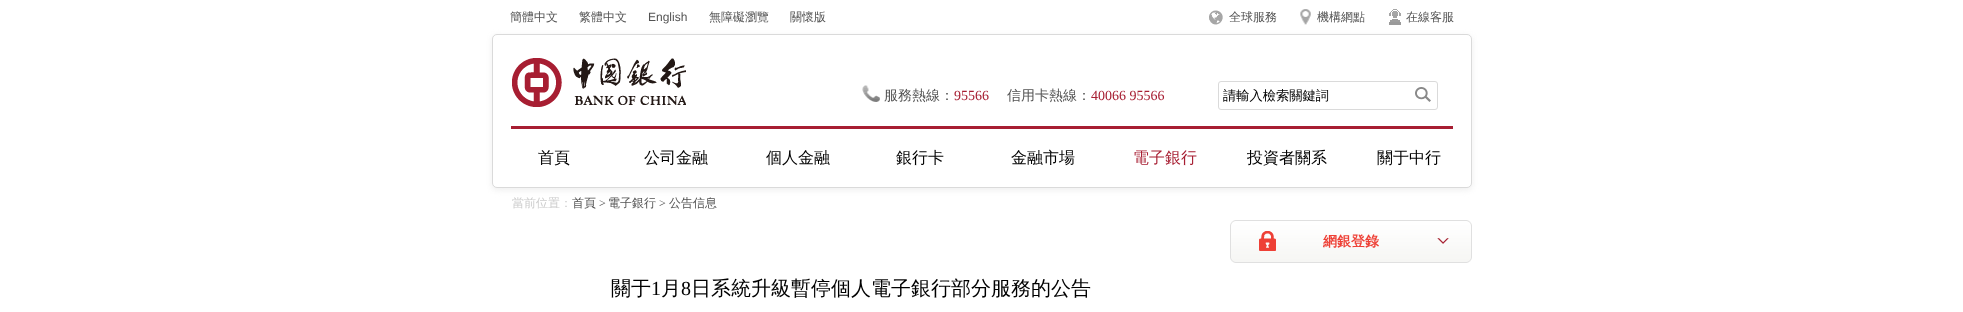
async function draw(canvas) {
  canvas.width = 1963
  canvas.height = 312
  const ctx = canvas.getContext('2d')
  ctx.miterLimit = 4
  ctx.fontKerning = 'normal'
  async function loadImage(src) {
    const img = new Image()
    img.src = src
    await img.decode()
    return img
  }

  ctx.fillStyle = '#fff'
  ctx.fillRect(0, 0, 1963, 312)
  ctx.font = '500 12px WenQuanYi Zen Hei'
  ctx.fillStyle = '#535353'
  ctx.fillText('簡體中文', 510, 21)
  ctx.fillText('繁體中文', 579, 21)
  ctx.font = '12px Liberation Sans'
  ctx.fillText('English', 648, 21)
  ctx.font = '500 12px WenQuanYi Zen Hei'
  ctx.fillText('無障礙瀏覽', 709, 21)
  ctx.fillText('關懷版', 790, 21)
  ctx.drawImage(await loadImage('image0.png'), 1209, 10, 14, 15)
  ctx.fillText('全球服務', 1229, 21)
  ctx.drawImage(await loadImage('image1.png'), 1300, 9, 11, 16)
  ctx.fillText('機構網點', 1317, 21)
  ctx.drawImage(await loadImage('image2.png'), 1389, 9, 12, 16)
  ctx.fillText('在線客服', 1406, 21)
  ctx.fillStyle = '#eee'
  ctx.filter = 'blur(3px)'
  ctx.beginPath()
  ctx.roundRect(492, 36, 980, 154, 5)
  ctx.fill()
  ctx.filter = 'none'
  ctx.fillStyle = '#fff'
  ctx.beginPath()
  ctx.roundRect(492.5, 34.5, 979, 153, 4.5)
  ctx.fill()
  ctx.strokeStyle = '#dadada'
  ctx.stroke()
  ctx.fillStyle = '#a71e32'
  ctx.fillRect(511, 126, 942, 3)
  ctx.drawImage(await loadImage('image3.png'), 512, 58, 174, 49)
  ctx.drawImage(await loadImage('image4.png'), 862, 85, 18, 17)
  ctx.font = '500 14px WenQuanYi Zen Hei'
  ctx.fillStyle = '#535353'
  ctx.fillText('服務熱線：', 884, 100)
  ctx.font = '14px Liberation Serif'
  ctx.fillStyle = '#a71e32'
  ctx.fillText('95566', 954, 100)
  ctx.font = '500 14px WenQuanYi Zen Hei'
  ctx.fillStyle = '#535353'
  ctx.fillText('信用卡熱線：', 1007, 100)
  ctx.font = '14px Liberation Serif'
  ctx.fillStyle = '#a71e32'
  ctx.fillText('40066 95566', 1091, 100)
  ctx.beginPath()
  ctx.roundRect(1218.5, 81.5, 219, 28, 2.5)
  ctx.stroke()
  ctx.save()
  ctx.beginPath()
  ctx.rect(1223, 87, 186, 18)
  ctx.clip()
  ctx.font = '500 13.25px WenQuanYi Zen Hei'
  ctx.fillStyle = '#000'
  ctx.fillText('請輸入檢索關鍵詞', 1223, 100)
  ctx.restore()
  ctx.drawImage(await loadImage('image5.png'), 1415, 87, 16, 15)
  ctx.font = '500 16px WenQuanYi Zen Hei'
  ctx.fillStyle = '#000'
  ctx.fillText('首頁', 538, 163)
  ctx.fillText('公司金融', 644, 163)
  ctx.fillText('個人金融', 766, 163)
  ctx.fillText('銀行卡', 896, 163)
  ctx.fillText('金融市場', 1011, 163)
  ctx.fillStyle = '#a71e32'
  ctx.fillText('電子銀行', 1133, 163)
  ctx.fillStyle = '#000'
  ctx.fillText('投資者關系', 1247, 163)
  ctx.fillText('關于中行', 1377, 163)
  ctx.font = '500 12px WenQuanYi Zen Hei'
  ctx.fillStyle = '#ccc'
  ctx.fillText('當前位置：', 512, 207)
  ctx.fillStyle = '#535353'
  ctx.fillText('首頁', 572, 207)
  ctx.font = '12px Liberation Serif'
  ctx.fillText('>', 599, 207)
  ctx.font = '500 12px WenQuanYi Zen Hei'
  ctx.fillText('電子銀行', 608, 207)
  ctx.font = '12px Liberation Serif'
  ctx.fillText('>', 659, 207)
  ctx.font = '500 12px WenQuanYi Zen Hei'
  ctx.fillText('公告信息', 669, 207)
  ctx.drawImage(await loadImage('image6.png'), 1230, 220, 242, 43)
  ctx.font = 'bold 14px WenQuanYi Zen Hei'
  ctx.fillStyle = '#ee4036'
  ctx.fillText('網銀登錄', 1323, 246)
  ctx.font = '500 20px WenQuanYi Zen Hei'
  ctx.fillStyle = '#000'
  ctx.fillText('關于', 611, 295)
  ctx.font = '20px Liberation Serif'
  ctx.fillText('1', 651, 295)
  ctx.font = '500 20px WenQuanYi Zen Hei'
  ctx.fillText('月', 661, 295)
  ctx.font = '20px Liberation Serif'
  ctx.fillText('8', 681, 295)
  ctx.font = '500 20px WenQuanYi Zen Hei'
  ctx.fillText('日系統升級暫停個人電子銀行部分服務的公告', 691, 295)
}

draw(document.querySelector('canvas'))
